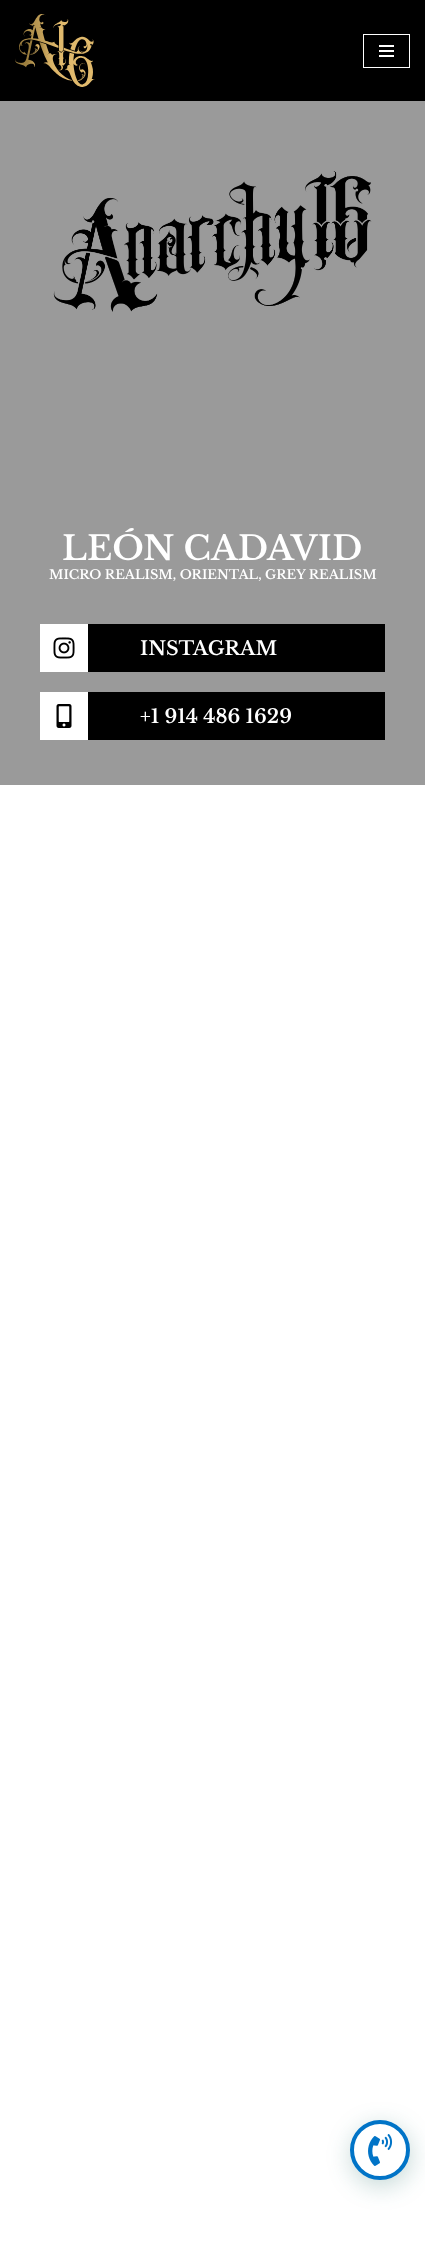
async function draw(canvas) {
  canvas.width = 425
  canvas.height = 2265
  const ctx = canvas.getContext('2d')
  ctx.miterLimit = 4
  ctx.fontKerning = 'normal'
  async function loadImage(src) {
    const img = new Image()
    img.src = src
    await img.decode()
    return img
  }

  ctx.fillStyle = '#fff'
  ctx.fillRect(0, 0, 425, 2265)
  ctx.fillStyle = '#000'
  ctx.fillRect(0, 0, 425, 101)
  ctx.drawImage(await loadImage('image0.png'), 15, 14, 80, 73)
  ctx.strokeStyle = '#fff'
  ctx.strokeRect(363.5, 34.5, 46, 33)
  ctx.fillStyle = '#fff'
  ctx.fillRect(379, 45, 15, 2)
  ctx.fillRect(379, 50, 15, 2)
  ctx.fillRect(379, 55, 15, 2)
  ctx.fillStyle = '#9a9a9a'
  ctx.fillRect(0, 101, 425, 684)
  ctx.drawImage(await loadImage('image1.png'), 53, 171, 319, 141)
  ctx.font = '600 33.5px Libre Baskerville'
  ctx.fillStyle = '#fff'
  ctx.fillText('LEÓN CADAVID', 62, 560)
  ctx.font = '600 12.8px Libre Baskerville'
  ctx.fillText('MICRO REALISM, ORIENTAL, GREY REALISM', 49, 579)
  ctx.fillStyle = '#000'
  ctx.fillRect(88, 624, 297, 48)
  ctx.fillStyle = '#fff'
  ctx.fillRect(40, 624, 48, 48)
  ctx.drawImage(await loadImage('image2.png'), 53, 637, 22, 22)
  ctx.font = '600 19.25px Libre Baskerville'
  ctx.fillText('INSTAGRAM', 140, 655)
  ctx.fillStyle = '#000'
  ctx.fillRect(88, 692, 297, 48)
  ctx.fillStyle = '#fff'
  ctx.fillRect(40, 692, 48, 48)
  ctx.drawImage(await loadImage('image3.png'), 56, 704, 16, 24)
  ctx.fillText('+1 914 486 1629', 140, 723)
  ctx.fillStyle = '#075e543d'
  ctx.filter = 'blur(12px)'
  ctx.beginPath()
  ctx.roundRect(351, 2126, 60, 60, 30)
  ctx.fill()
  ctx.filter = 'none'
  ctx.fillStyle = '#fff'
  ctx.beginPath()
  ctx.arc(380, 2150, 28, 0, 2 * Math.PI)
  ctx.fill()
  ctx.strokeStyle = '#0174c7'
  ctx.lineWidth = 4
  ctx.stroke()
  ctx.drawImage(await loadImage('image4.png'), 368, 2134, 25, 32)
}

draw(document.querySelector('canvas'))
